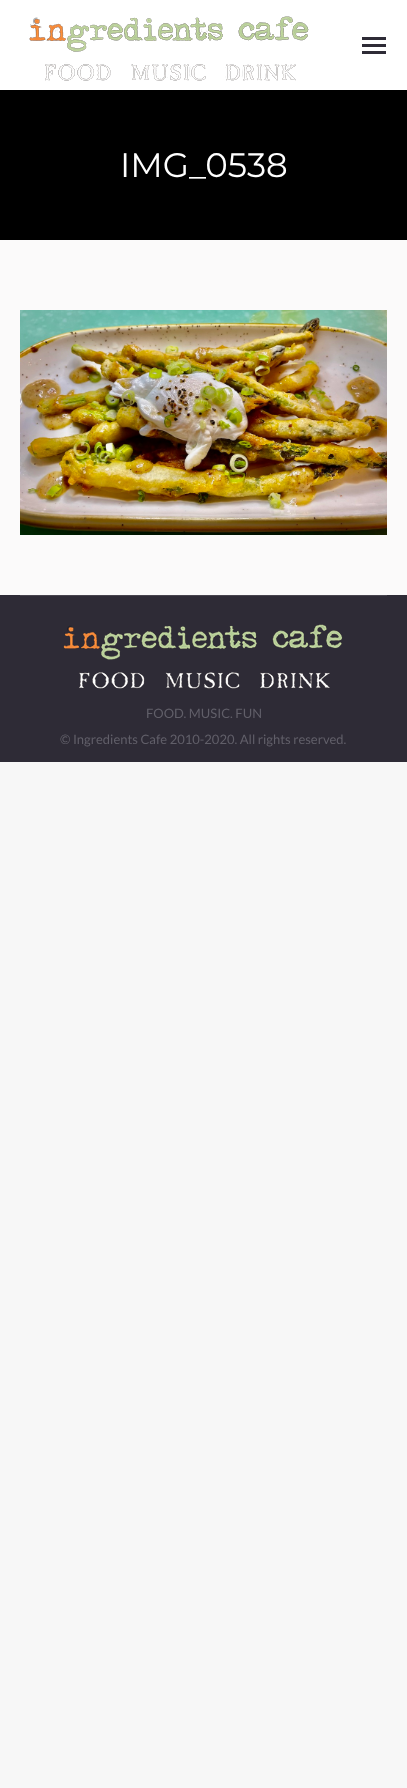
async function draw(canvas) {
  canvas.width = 407
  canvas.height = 1788
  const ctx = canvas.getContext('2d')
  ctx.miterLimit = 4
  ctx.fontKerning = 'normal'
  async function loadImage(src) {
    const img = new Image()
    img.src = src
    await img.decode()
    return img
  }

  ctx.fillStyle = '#f7f7f7'
  ctx.fillRect(0, 0, 407, 1788)
  ctx.fillStyle = '#fbfafa'
  ctx.fillRect(0, 240, 407, 355)
  ctx.fillStyle = '#fff'
  ctx.fillRect(0, 0, 407, 90)
  ctx.drawImage(await loadImage('image0.png'), 29, 16, 280, 65)
  ctx.fillStyle = '#2e2b36'
  ctx.fillRect(362, 37, 24, 3)
  ctx.fillRect(362, 44, 24, 3)
  ctx.fillRect(362, 51, 24, 3)
  ctx.fillStyle = '#000'
  ctx.fillRect(0, 90, 407, 150)
  ctx.font = '34px Montserrat'
  ctx.fillStyle = '#fff'
  ctx.fillText('IMG_0538', 120, 177)
  ctx.drawImage(await loadImage('image1.png'), 20, 310, 367, 225)
  ctx.fillStyle = '#2e2b36'
  ctx.fillRect(0, 595, 407, 167)
  ctx.fillStyle = '#47444e'
  ctx.fillRect(20, 595, 367, 1)
  ctx.drawImage(await loadImage('image2.png'), 63, 624, 280, 65)
  ctx.font = '13px Lato'
  ctx.fillStyle = '#615f69'
  ctx.fillText('FOOD. MUSIC. FUN', 146, 718)
  ctx.fillText('© Ingredients Cafe 2010-2020. All rights reserved.', 60, 744)
}

draw(document.querySelector('canvas'))
